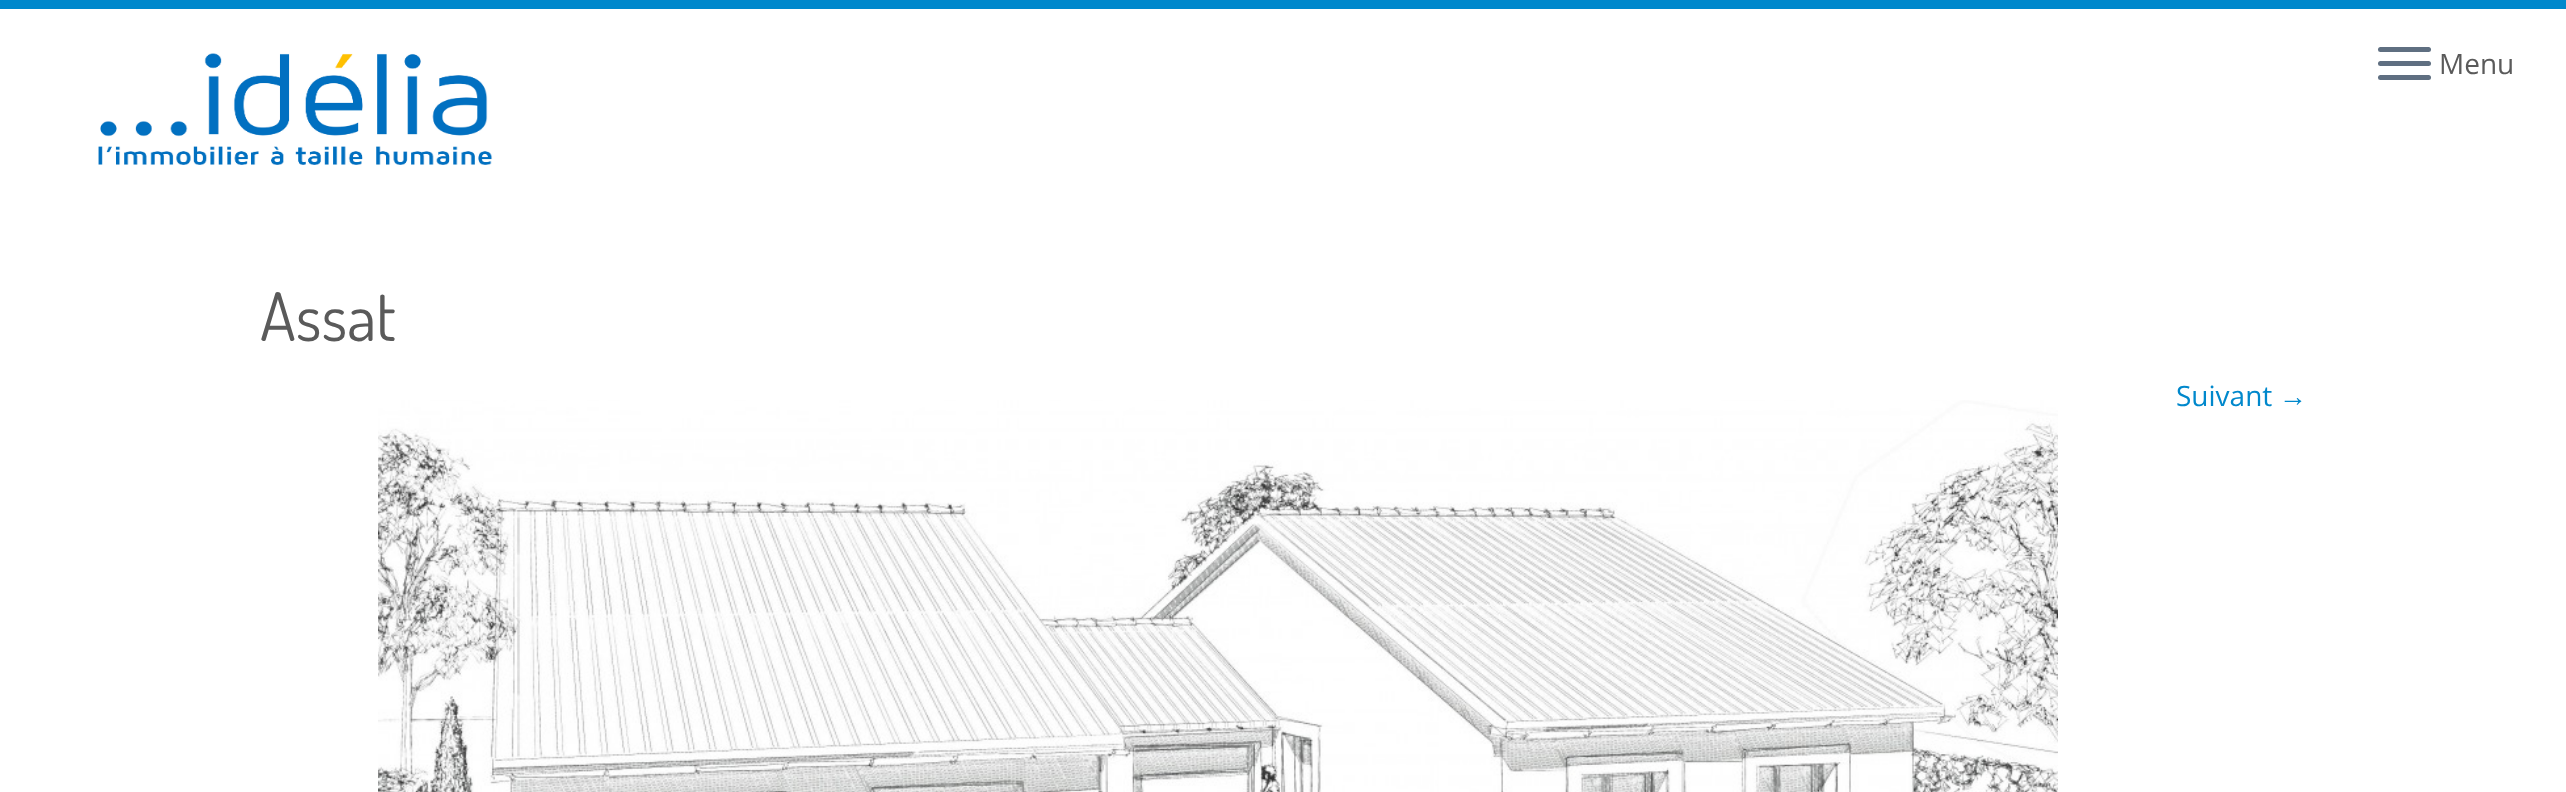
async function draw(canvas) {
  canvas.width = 2566
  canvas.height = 792
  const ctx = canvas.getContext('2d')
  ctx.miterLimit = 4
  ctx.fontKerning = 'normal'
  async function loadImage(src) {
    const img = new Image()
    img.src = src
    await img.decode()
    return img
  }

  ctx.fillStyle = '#fff'
  ctx.fillRect(0, 0, 2566, 792)
  ctx.fillStyle = '#08c'
  ctx.fillRect(0, 0, 2566, 9)
  ctx.drawImage(await loadImage('image0.png'), 98, 53, 395, 112)
  ctx.fillStyle = '#5f6f81'
  ctx.beginPath()
  ctx.roundRect(2378, 47, 53, 5, 2.5)
  ctx.fill()
  ctx.beginPath()
  ctx.roundRect(2378, 61, 53, 5, 2.5)
  ctx.fill()
  ctx.beginPath()
  ctx.roundRect(2378, 75, 53, 5, 2.5)
  ctx.fill()
  ctx.font = '28px Open Sans'
  ctx.fillStyle = '#5a5a5a'
  ctx.fillText('Menu', 2439, 74)
  ctx.font = '66.5px Dosis'
  ctx.fillText('Assat', 260, 341)
  ctx.font = '28px Open Sans'
  ctx.fillStyle = '#08c'
  ctx.fillText('Suivant', 2176, 406)
  ctx.font = '28px Liberation Serif'
  ctx.fillText('→', 2279, 406)
  ctx.drawImage(await loadImage('image1.png'), 378, 400, 1680, 392)
}

draw(document.querySelector('canvas'))
